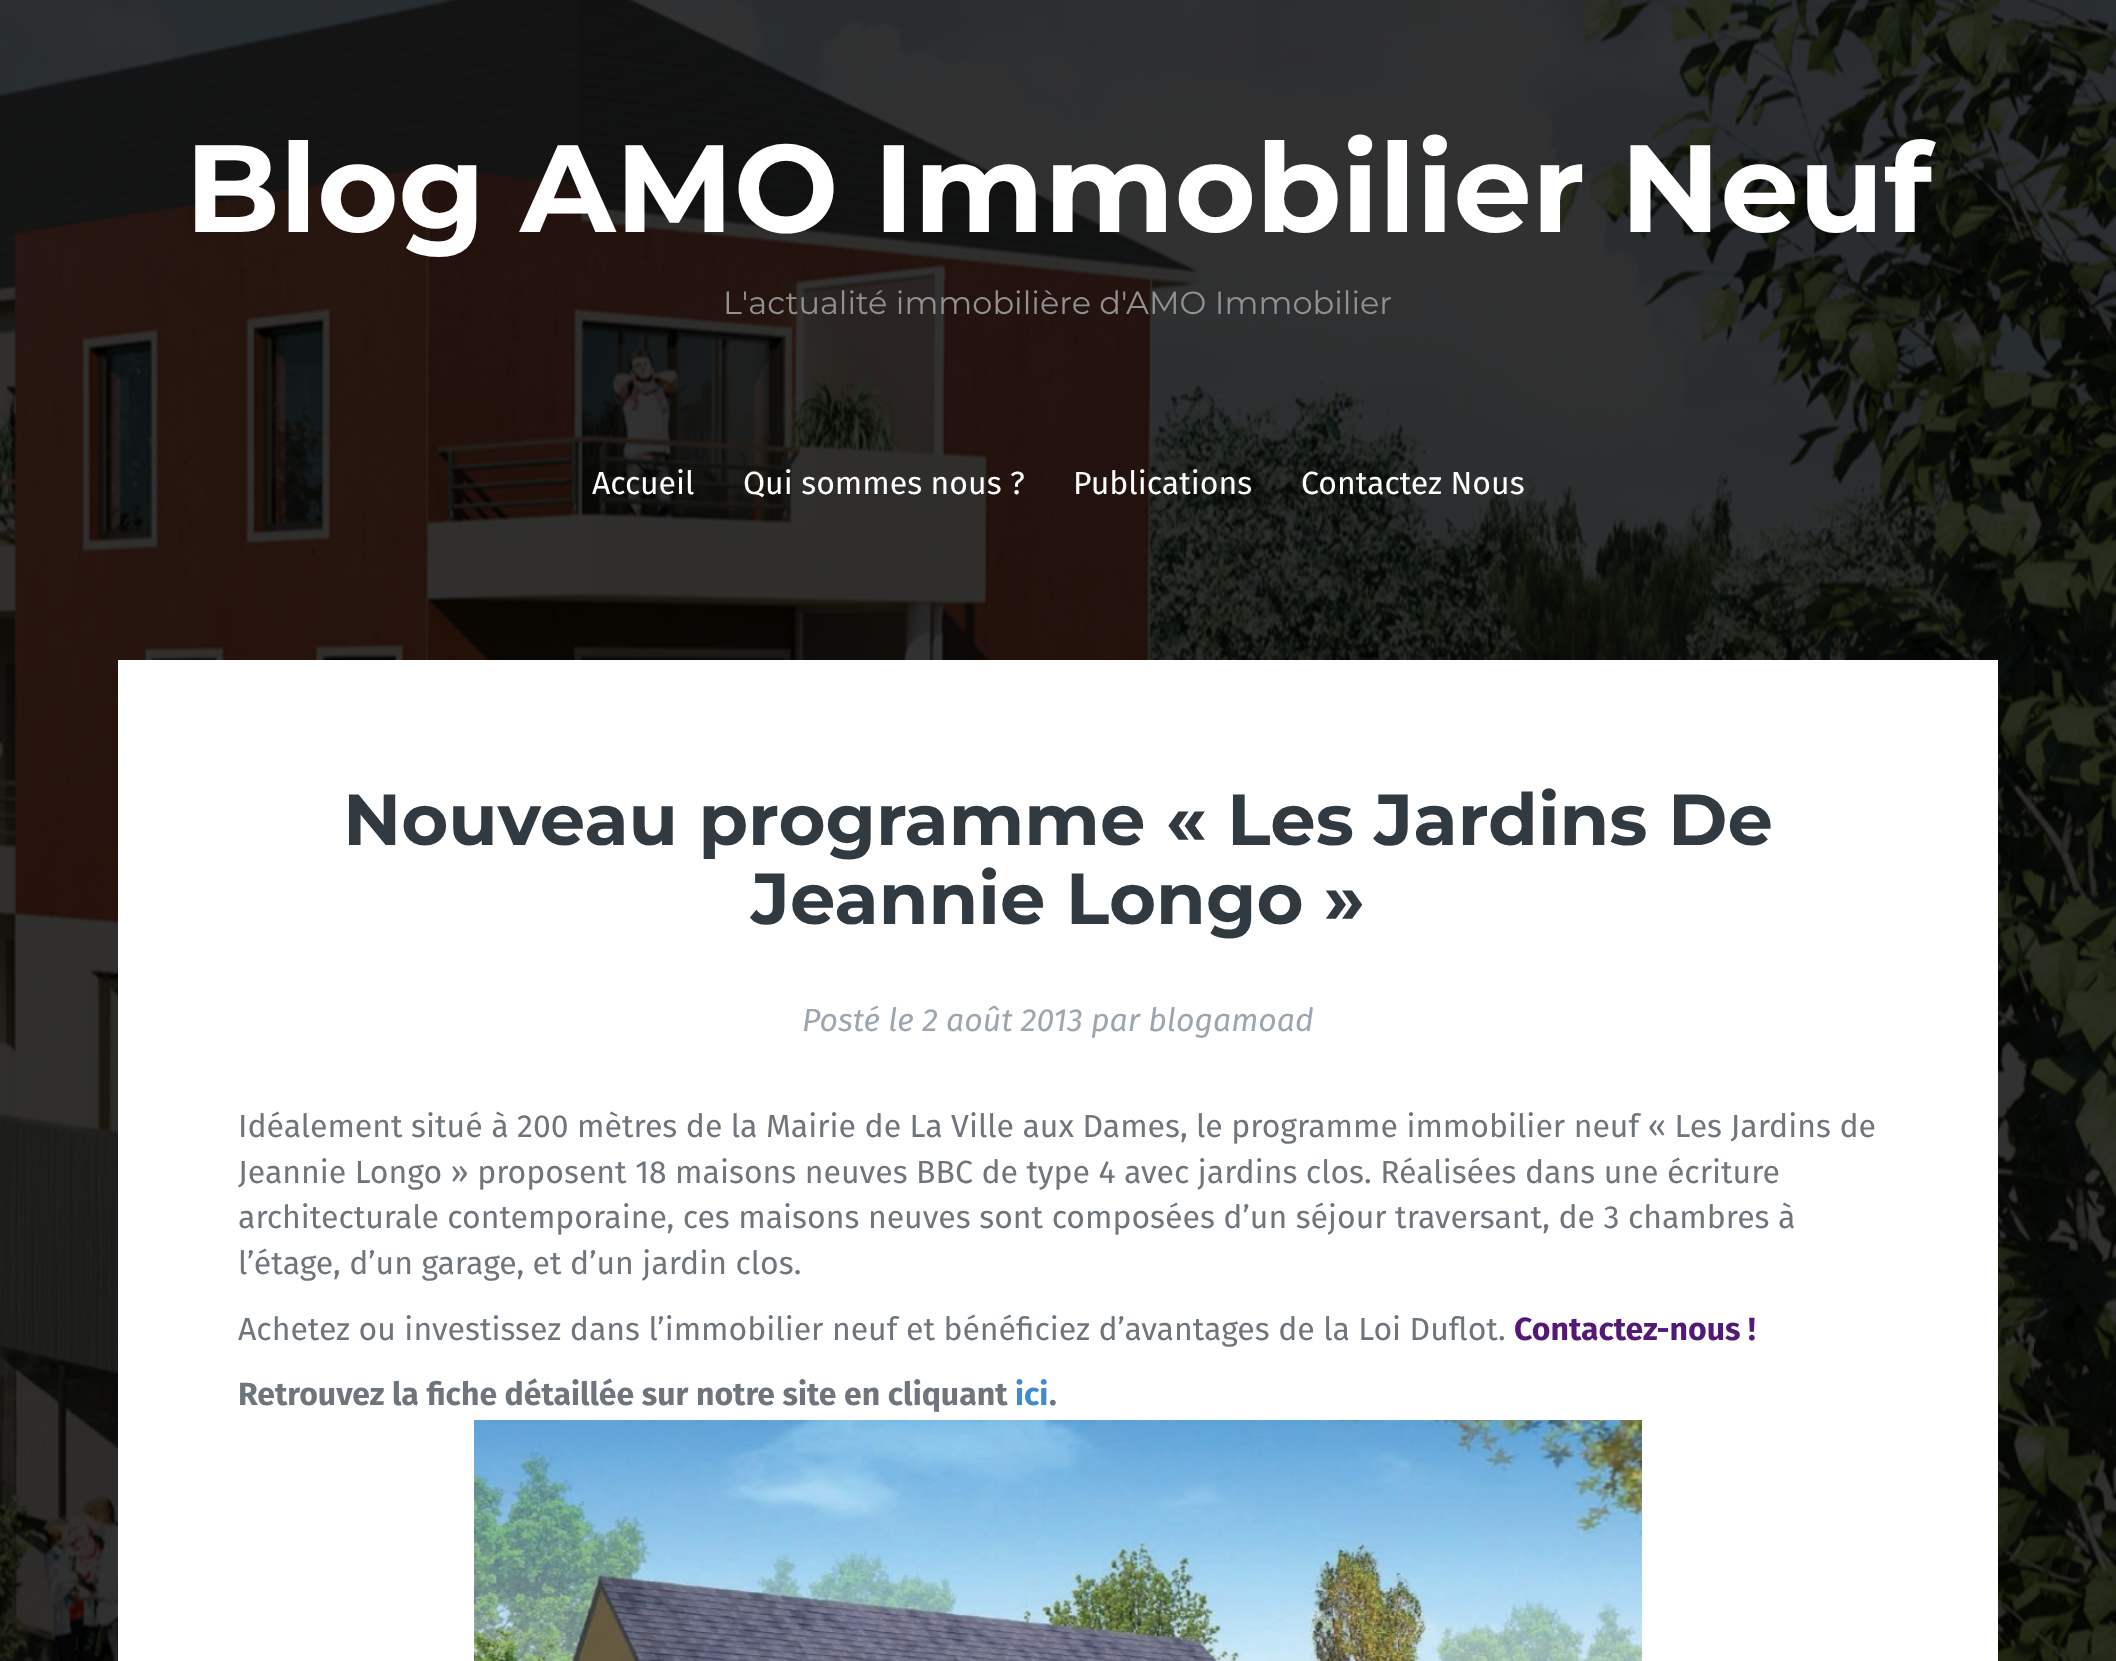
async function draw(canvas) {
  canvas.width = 2116
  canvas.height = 1661
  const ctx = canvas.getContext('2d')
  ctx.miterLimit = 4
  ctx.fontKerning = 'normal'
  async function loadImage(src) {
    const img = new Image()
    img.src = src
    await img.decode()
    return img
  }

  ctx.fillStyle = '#fff'
  ctx.fillRect(0, 0, 2116, 1661)
  ctx.drawImage(await loadImage('image0.png'), 0, 0, 2116, 1661)
  ctx.font = 'bold 124px Montserrat'
  ctx.fillText('Blog AMO Immobilier Neuf', 185, 232)
  ctx.font = '32px Montserrat'
  ctx.fillStyle = '#919191'
  ctx.fillText('L\'actualité immobilière d\'AMO Immobilier', 723, 314)
  ctx.font = '32px Fira Sans'
  ctx.fillStyle = '#fff'
  ctx.fillText('Accueil', 592, 494)
  ctx.fillText('Qui sommes nous ?', 743, 494)
  ctx.fillText('Publications', 1073, 494)
  ctx.fillText('Contactez Nous', 1301, 494)
  ctx.fillRect(118, 660, 1880, 1001)
  ctx.font = 'bold 72px Montserrat'
  ctx.fillStyle = '#323a41'
  ctx.fillText('Nouveau programme « Les Jardins De', 343, 845)
  ctx.fillText('Jeannie Longo »', 751, 924)
  ctx.font = 'italic 32px Fira Sans'
  ctx.fillStyle = '#9ca6b0'
  ctx.fillText('Posté le 2 août 2013 par blogamoad', 802, 1031)
  ctx.font = '32px Fira Sans'
  ctx.fillStyle = '#6e757c'
  ctx.fillText('Idéalement situé à 200 mètres de la Mairie de La Ville aux Dames, le programme immobilier neuf « Les Jardins de', 238, 1137)
  ctx.fillText('Jeannie Longo » proposent 18 maisons neuves BBC de type 4 avec jardins clos. Réalisées dans une écriture', 238, 1183)
  ctx.fillText('architecturale contemporaine, ces maisons neuves sont composées d’un séjour traversant, de 3 chambres à', 238, 1228)
  ctx.fillText('l’étage, d’un garage, et d’un jardin clos.', 238, 1274)
  ctx.fillText('Achetez ou investissez dans l’immobilier neuf et bénéficiez d’avantages de la Loi Duflot.', 238, 1340)
  ctx.font = 'bold 32px Fira Sans'
  ctx.fillStyle = '#531976'
  ctx.fillText('Contactez-nous !', 1514, 1340)
  ctx.fillStyle = '#6e757c'
  ctx.fillText('Retrouvez la fiche détaillée sur notre site en cliquant', 238, 1405)
  ctx.fillStyle = '#428bca'
  ctx.fillText('ici', 1015, 1405)
  ctx.fillStyle = '#6e757c'
  ctx.fillText('.', 1049, 1405)
  ctx.drawImage(await loadImage('image1.png'), 474, 1420, 1168, 241)
}

draw(document.querySelector('canvas'))
